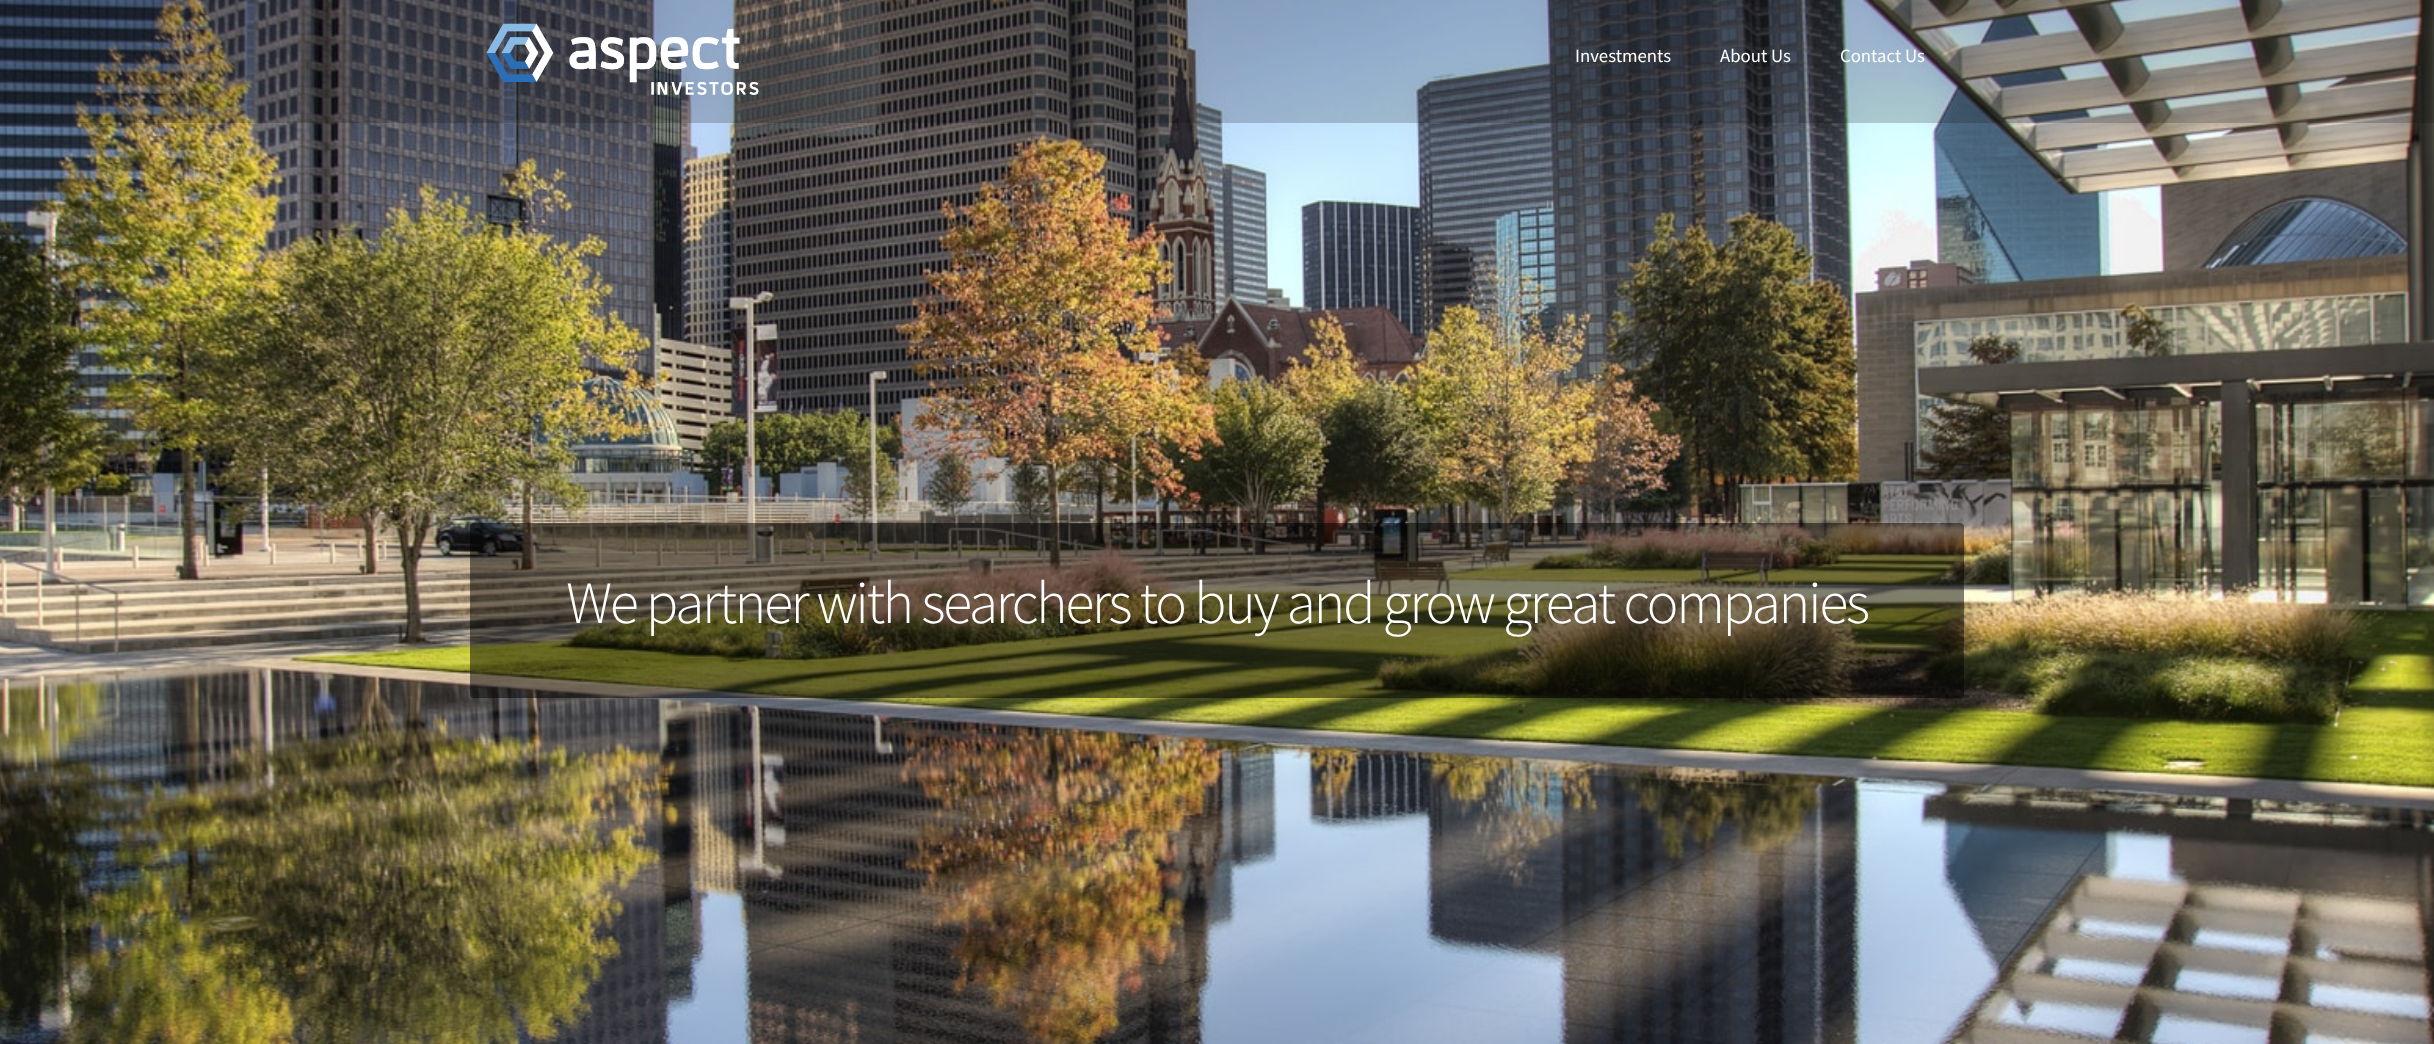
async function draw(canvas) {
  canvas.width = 2434
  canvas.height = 1044
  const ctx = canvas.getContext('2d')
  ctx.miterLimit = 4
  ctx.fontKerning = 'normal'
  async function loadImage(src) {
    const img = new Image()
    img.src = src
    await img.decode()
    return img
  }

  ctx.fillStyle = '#fff'
  ctx.fillRect(0, 0, 2434, 1044)
  ctx.drawImage(await loadImage('image1.png'), 0, 0, 2434, 1044)
  ctx.fillStyle = '#0a0a0a33'
  ctx.fillRect(0, 0, 2434, 123)
  ctx.drawImage(await loadImage('image0.png'), 486, 23, 273, 72)
  ctx.font = '18.75px Source Sans Pro'
  ctx.fillStyle = '#fff'
  ctx.fillText('Investments', 1575, 62)
  ctx.fillText('About Us', 1720, 62)
  ctx.fillText('Contact Us', 1840, 62)
  ctx.fillStyle = '#00000080'
  ctx.beginPath()
  ctx.roundRect(470, 523, 1494, 175, 4)
  ctx.fill()
  ctx.letterSpacing = '-2.5px'
  ctx.font = '300 60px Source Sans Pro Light'
  ctx.fillStyle = '#fff'
  ctx.fillText('We partner with searchers to buy and grow great companies', 566, 623)
}

draw(document.querySelector('canvas'))
